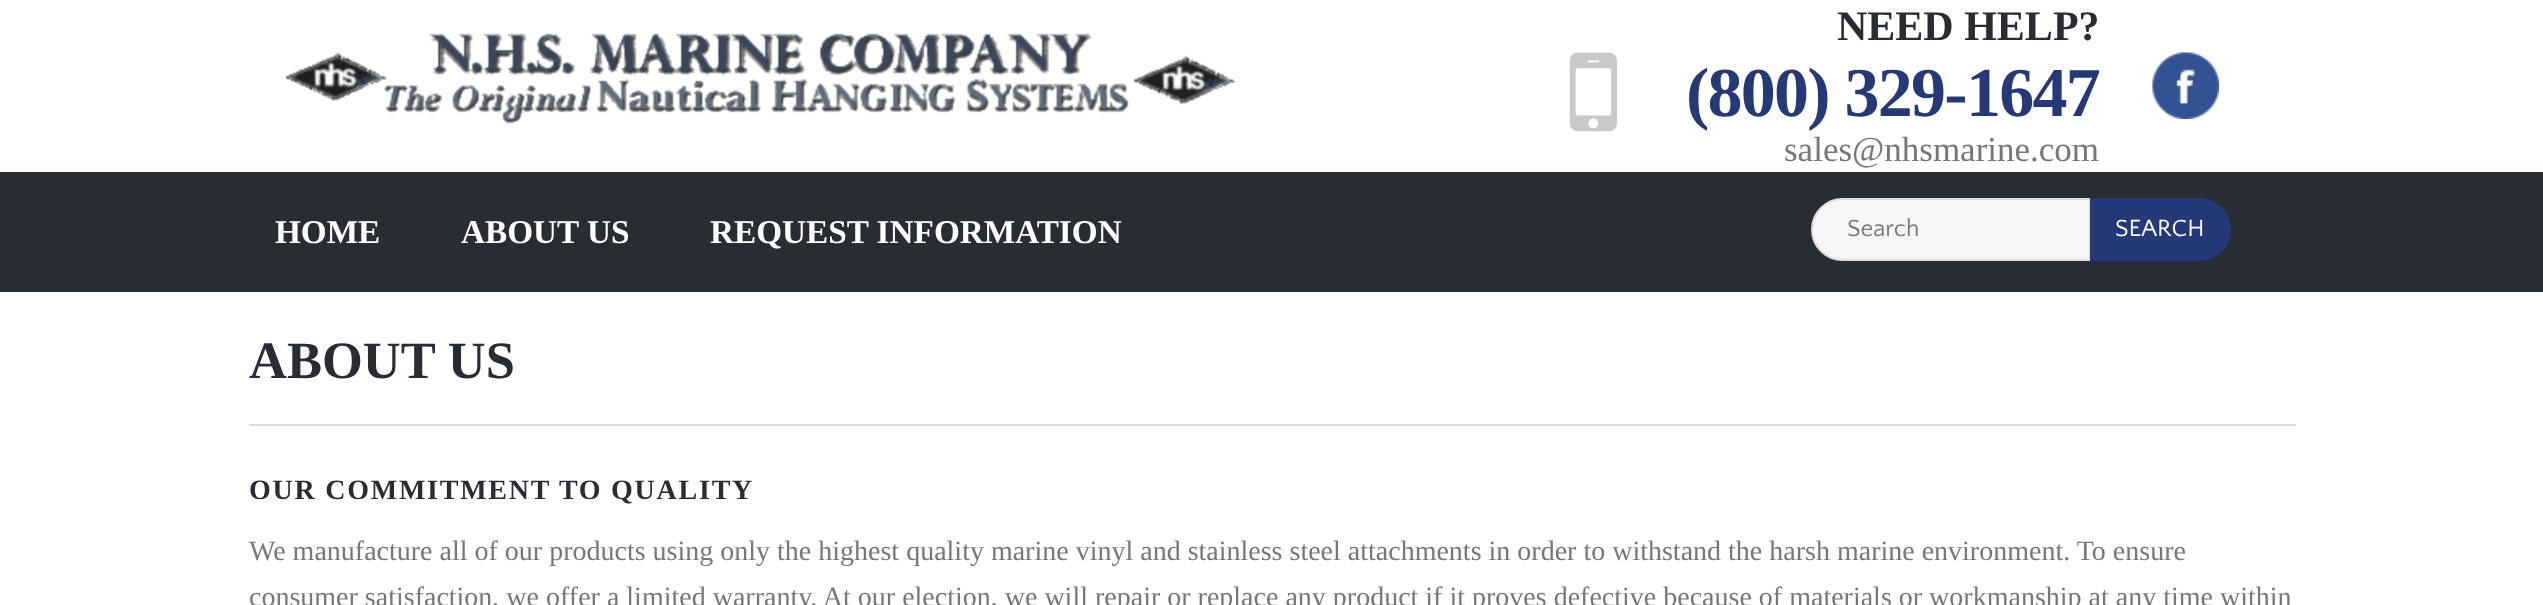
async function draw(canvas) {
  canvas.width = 2543
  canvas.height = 605
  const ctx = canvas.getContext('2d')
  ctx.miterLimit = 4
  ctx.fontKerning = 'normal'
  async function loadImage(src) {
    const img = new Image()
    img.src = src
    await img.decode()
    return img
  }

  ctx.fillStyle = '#fff'
  ctx.fillRect(0, 0, 2543, 605)
  ctx.drawImage(await loadImage('image0.png'), 285, 33, 951, 91)
  ctx.font = 'bold 42px Liberation Serif'
  ctx.fillStyle = '#272d33'
  ctx.fillText('NEED HELP?', 1837, 40)
  ctx.drawImage(await loadImage('image1.png'), 1569, 52, 48, 80)
  ctx.letterSpacing = '-1.75px'
  ctx.font = 'bold 70px Liberation Serif'
  ctx.fillStyle = '#253877'
  ctx.fillText('(800) 329-1647', 1686, 116)
  ctx.letterSpacing = '0px'
  ctx.font = '35px Liberation Serif'
  ctx.fillStyle = '#777'
  ctx.fillText('sales@nhsmarine.com', 1784, 161)
  ctx.drawImage(await loadImage('image2.png'), 2152, 52, 67, 67)
  ctx.fillStyle = '#272d33'
  ctx.fillRect(0, 172, 2543, 120)
  ctx.font = 'bold 33.25px Liberation Serif'
  ctx.fillStyle = '#fff'
  ctx.fillText('HOME', 275, 243)
  ctx.fillText('ABOUT US', 461, 243)
  ctx.fillText('REQUEST INFORMATION', 710, 243)
  ctx.fillStyle = '#f6f6f6'
  ctx.beginPath()
  ctx.roundRect(1812, 199, 278, 61, [30.5, 0, 0, 30.5])
  ctx.fill()
  ctx.strokeStyle = '#ddd'
  ctx.lineWidth = 2
  ctx.stroke()
  ctx.font = '24.5px Quattrocento Sans'
  ctx.fillStyle = '#777'
  ctx.fillText('Search', 1847, 236)
  ctx.fillStyle = '#253877'
  ctx.beginPath()
  ctx.roundRect(2090, 198, 141, 63, [0, 31.5, 31.5, 0])
  ctx.fill()
  ctx.fillStyle = '#fff'
  ctx.fillText('SEARCH', 2115, 236)
  ctx.fillStyle = '#ddd'
  ctx.fillRect(249, 424, 2047, 2)
  ctx.font = 'bold 52.5px Liberation Serif'
  ctx.fillStyle = '#272d33'
  ctx.fillText('ABOUT US', 249, 378)
  ctx.letterSpacing = '1.75px'
  ctx.font = 'bold 28px Liberation Serif'
  ctx.fillText('OUR COMMITMENT TO QUALITY', 249, 499)
  ctx.letterSpacing = '0px'
  ctx.font = '28px Liberation Serif'
  ctx.fillStyle = '#777'
  ctx.fillText('We manufacture all of our products using only the highest quality marine vinyl and stainless steel attachments in order to withstand the harsh marine environment. To ensure', 249, 560)
  ctx.fillText('consumer satisfaction, we offer a limited warranty. At our election, we will repair or replace any product if it proves defective because of materials or workmanship at any time within', 249, 606)
}

draw(document.querySelector('canvas'))
